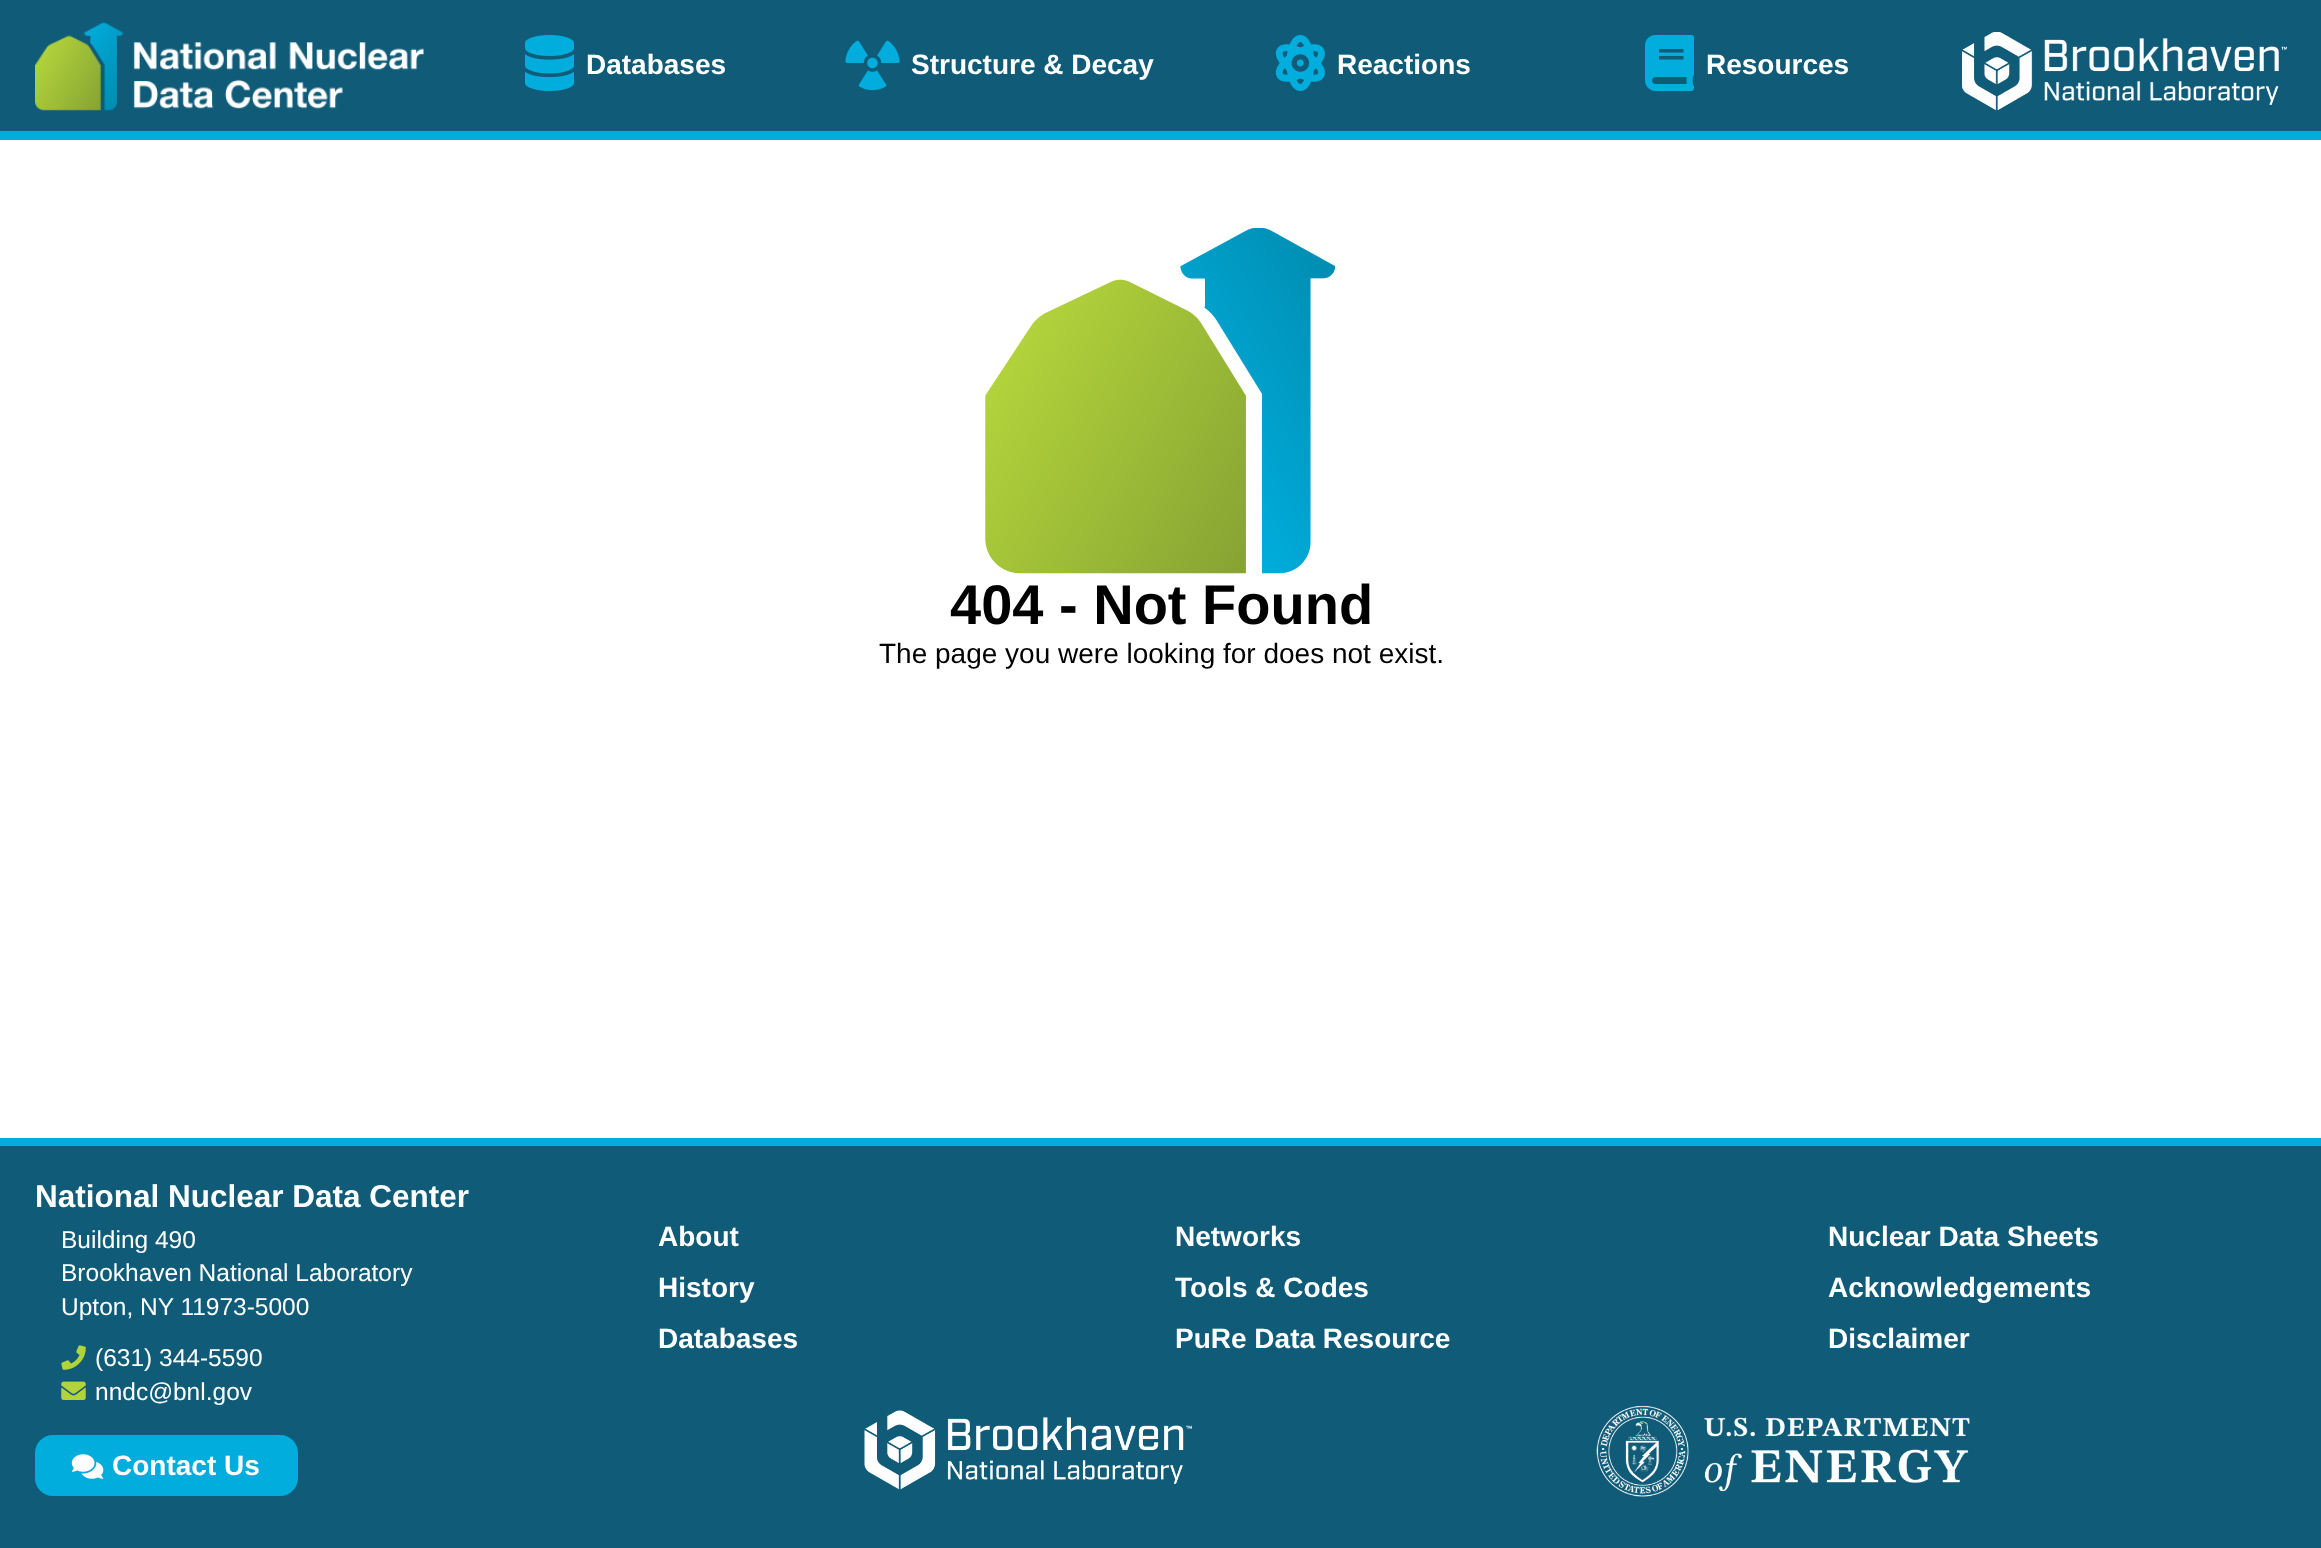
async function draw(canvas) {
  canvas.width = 2321
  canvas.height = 1548
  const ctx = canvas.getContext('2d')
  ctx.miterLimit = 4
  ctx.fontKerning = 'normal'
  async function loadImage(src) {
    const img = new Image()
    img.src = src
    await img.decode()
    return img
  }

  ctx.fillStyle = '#fff'
  ctx.fillRect(0, 0, 2321, 1548)
  ctx.fillStyle = '#105c78'
  ctx.fillRect(0, 0, 2321, 131)
  ctx.fillStyle = '#00addc'
  ctx.fillRect(0, 131, 2321, 9)
  ctx.drawImage(await loadImage('image0.png'), 35, 22, 389, 89)
  ctx.drawImage(await loadImage('image1.png'), 525, 35, 49, 56)
  ctx.font = 'bold 28px Liberation Sans'
  ctx.fillStyle = '#fff'
  ctx.fillText('Databases', 586, 74)
  ctx.drawImage(await loadImage('image2.png'), 845, 40, 55, 51)
  ctx.fillText('Structure & Decay', 911, 74)
  ctx.drawImage(await loadImage('image3.png'), 1275, 35, 50, 56)
  ctx.fillText('Reactions', 1337, 74)
  ctx.drawImage(await loadImage('image4.png'), 1645, 35, 49, 56)
  ctx.fillText('Resources', 1706, 74)
  ctx.drawImage(await loadImage('image5.png'), 1962, 32, 325, 78)
  ctx.drawImage(await loadImage('image6.png'), 985, 228, 350, 346)
  ctx.font = 'bold 56px Liberation Sans'
  ctx.fillStyle = '#000'
  ctx.fillText('404 - Not Found', 950, 624)
  ctx.font = '28px Liberation Sans'
  ctx.fillText('The page you were looking for does not exist.', 879, 663)
  ctx.fillStyle = '#105c78'
  ctx.fillRect(0, 1146, 2321, 402)
  ctx.fillStyle = '#00addc'
  ctx.fillRect(0, 1138, 2321, 8)
  ctx.font = 'bold 31.5px Liberation Sans'
  ctx.fillStyle = '#fff'
  ctx.fillText('National Nuclear Data Center', 35, 1207)
  ctx.font = '24.5px Liberation Sans'
  ctx.fillText('Building 490', 61, 1248)
  ctx.fillText('Brookhaven National Laboratory', 61, 1281)
  ctx.fillText('Upton, NY 11973-5000', 61, 1315)
  ctx.drawImage(await loadImage('image7.png'), 61, 1345, 25, 25)
  ctx.fillText('(631) 344-5590', 95, 1366)
  ctx.drawImage(await loadImage('image8.png'), 61, 1381, 25, 19)
  ctx.fillText('nndc@bnl.gov', 95, 1400)
  ctx.fillStyle = '#00addc'
  ctx.beginPath()
  ctx.roundRect(35, 1435, 263, 61, 18)
  ctx.fill()
  ctx.drawImage(await loadImage('image9.png'), 71, 1454, 33, 25)
  ctx.font = 'bold 28px Liberation Sans'
  ctx.fillStyle = '#fff'
  ctx.fillText('Contact Us', 112, 1475)
  ctx.fillText('About', 658, 1246)
  ctx.fillText('History', 658, 1297)
  ctx.fillText('Databases', 658, 1348)
  ctx.fillText('Networks', 1175, 1246)
  ctx.fillText('Tools & Codes', 1175, 1297)
  ctx.fillText('PuRe Data Resource', 1175, 1348)
  ctx.fillText('Nuclear Data Sheets', 1828, 1246)
  ctx.fillText('Acknowledgements', 1828, 1297)
  ctx.fillText('Disclaimer', 1828, 1348)
  ctx.drawImage(await loadImage('image10.png'), 864, 1410, 328, 80)
  ctx.drawImage(await loadImage('image11.png'), 1596, 1405, 374, 92)
}

draw(document.querySelector('canvas'))
